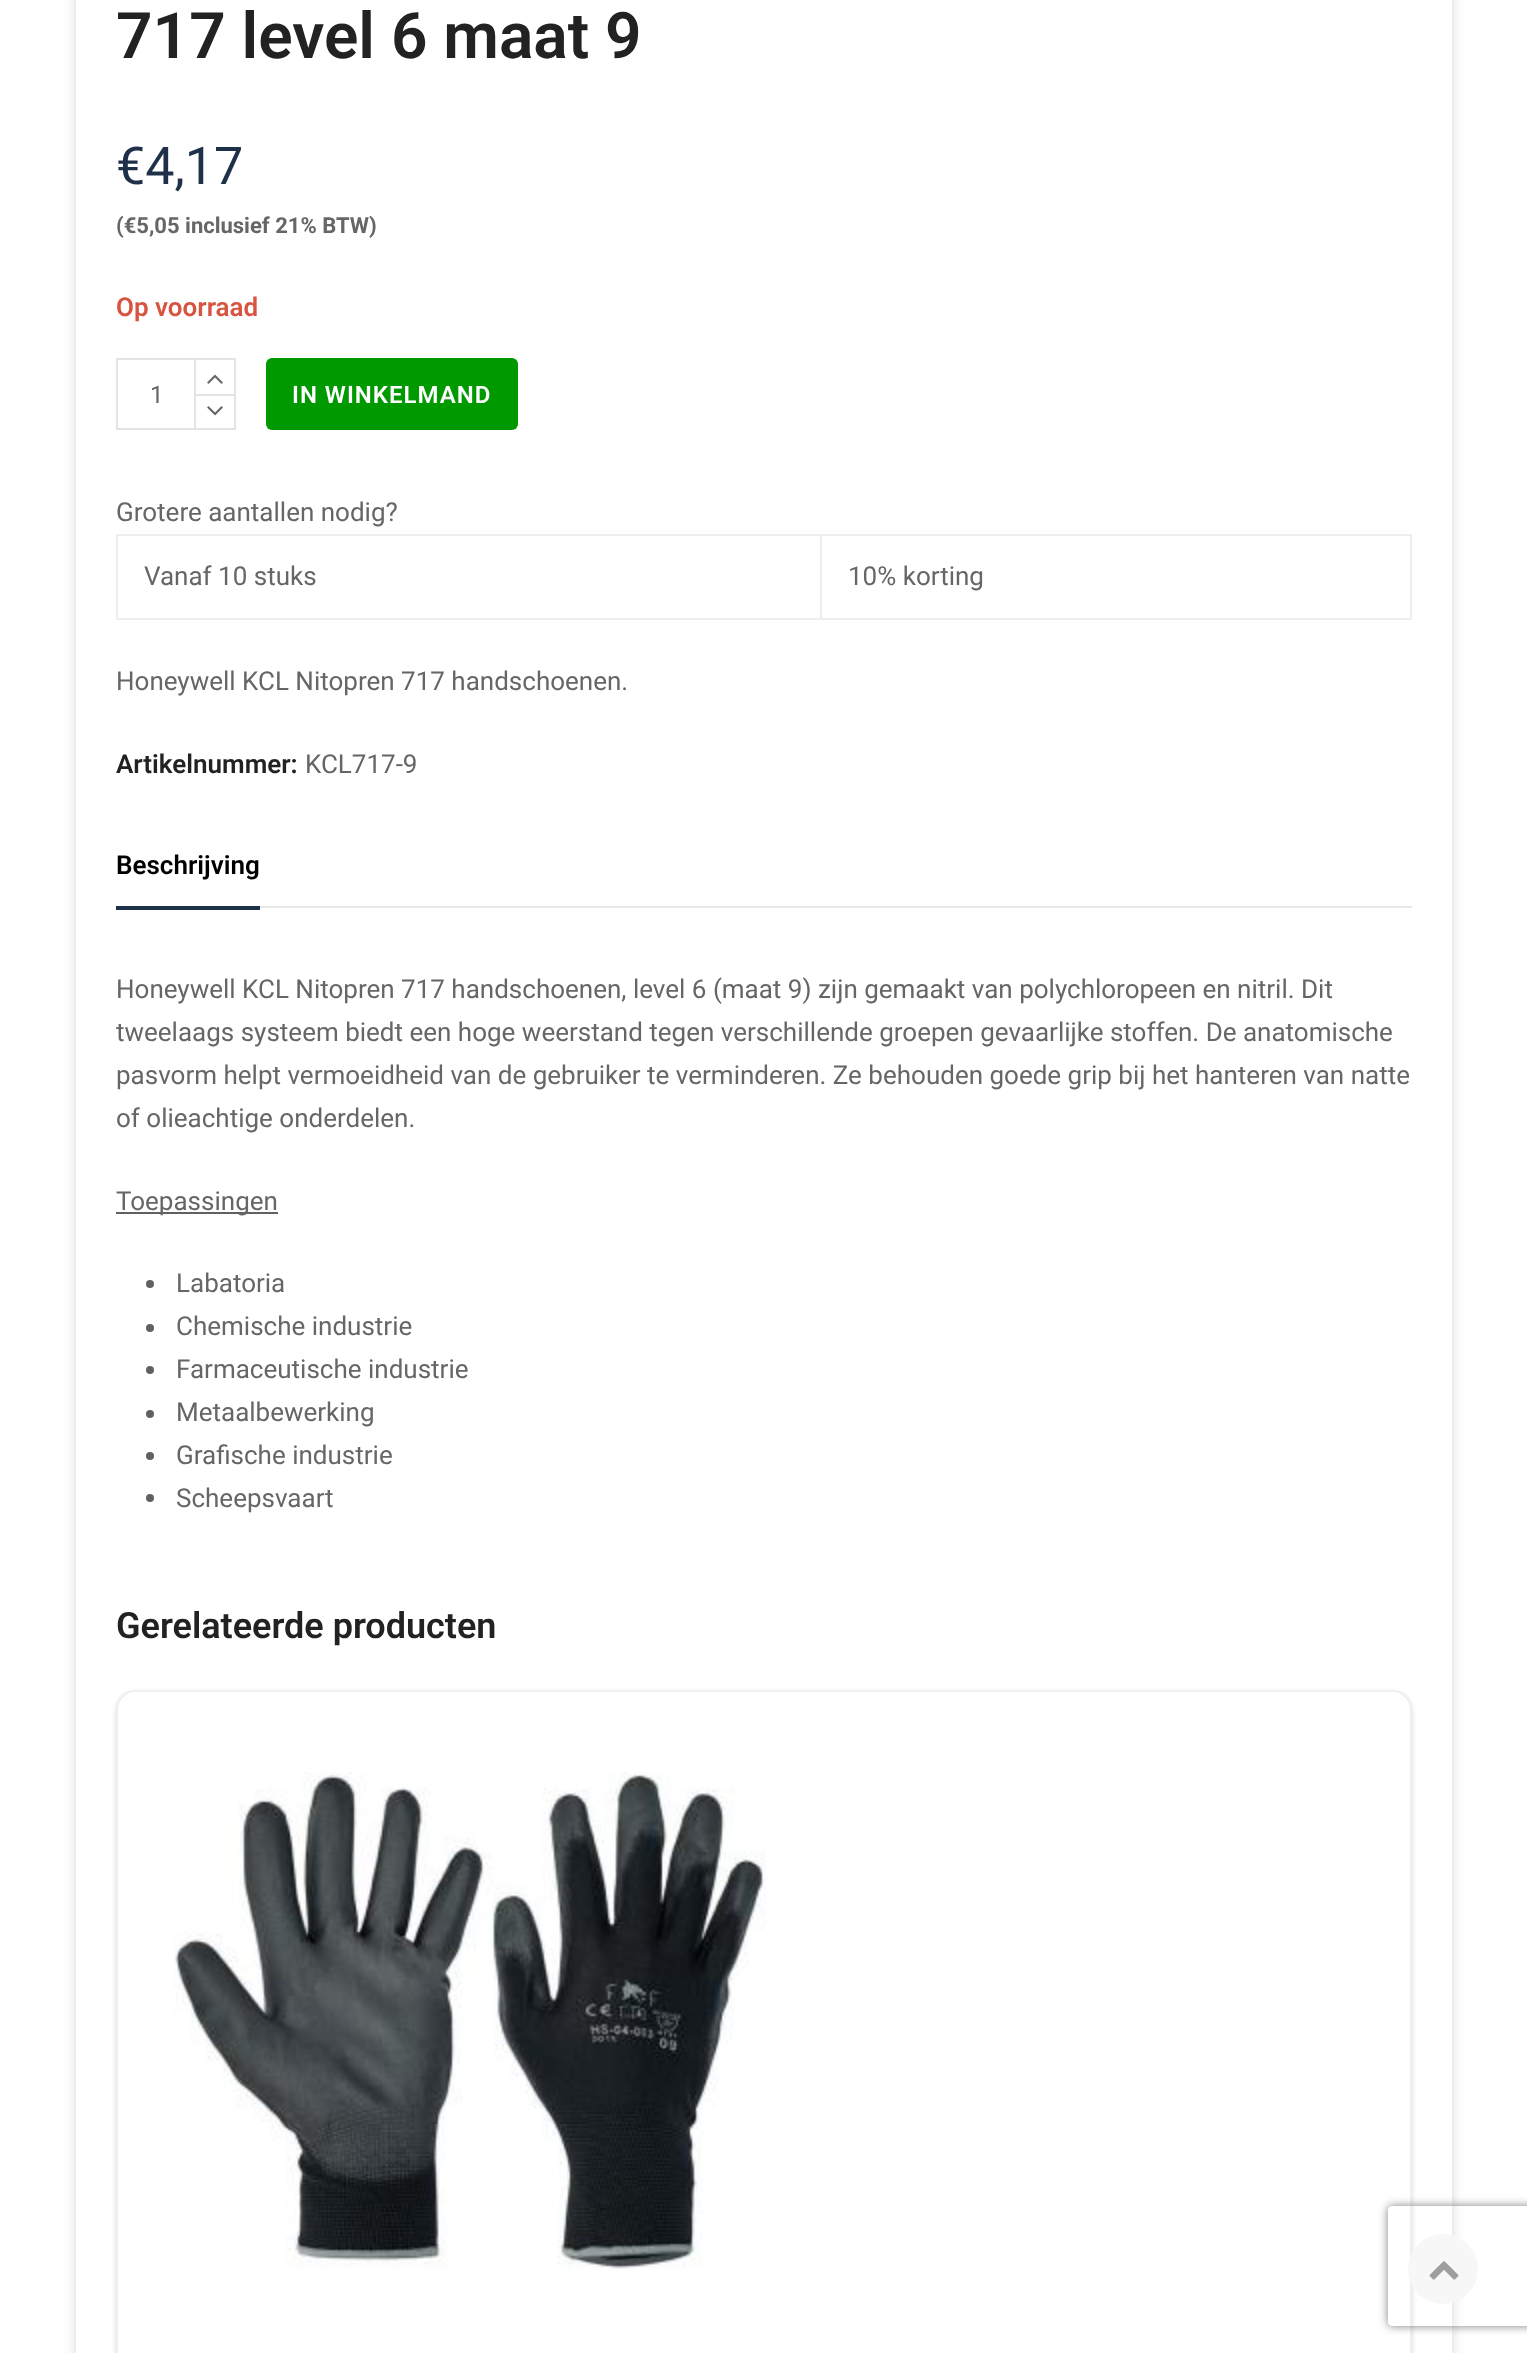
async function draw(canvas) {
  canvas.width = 1527
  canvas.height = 2353
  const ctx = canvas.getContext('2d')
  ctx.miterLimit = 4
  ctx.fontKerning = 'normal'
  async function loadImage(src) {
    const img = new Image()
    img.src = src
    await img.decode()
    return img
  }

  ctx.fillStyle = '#fff'
  ctx.fillRect(0, 0, 1527, 2353)
  ctx.save()
  ctx.beginPath()
  ctx.moveTo(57, 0)
  ctx.lineTo(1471, 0)
  ctx.lineTo(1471, 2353)
  ctx.lineTo(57, 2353)
  ctx.closePath()
  ctx.moveTo(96, -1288)
  ctx.lineTo(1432, -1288)
  ctx.bezierCurveTo(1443, -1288, 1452, -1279, 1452, -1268)
  ctx.lineTo(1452, 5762)
  ctx.bezierCurveTo(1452, 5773, 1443, 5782, 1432, 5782)
  ctx.lineTo(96, 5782)
  ctx.bezierCurveTo(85, 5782, 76, 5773, 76, 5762)
  ctx.lineTo(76, -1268)
  ctx.bezierCurveTo(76, -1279, 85, -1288, 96, -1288)
  ctx.closePath()
  ctx.clip('evenodd')
  ctx.fillStyle = '#00000029'
  ctx.filter = 'blur(6px)'
  ctx.beginPath()
  ctx.roundRect(76, -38, 1376, 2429, 20)
  ctx.fill()
  ctx.filter = 'none'
  ctx.restore()
  ctx.font = '600 64px Roboto'
  ctx.fillStyle = '#222'
  ctx.fillText('717 level 6 maat 9', 116, 58)
  ctx.font = '52px Roboto'
  ctx.fillStyle = '#1f3149'
  ctx.fillText('€4,17', 116, 184)
  ctx.font = 'bold 22px Roboto'
  ctx.fillStyle = '#666'
  ctx.fillText('(€5,05 inclusief 21% BTW)', 116, 233)
  ctx.font = '600 26px Roboto'
  ctx.fillStyle = '#d75440'
  ctx.fillText('Op voorraad', 116, 316)
  ctx.strokeStyle = '#e4e4e4'
  ctx.lineWidth = 2
  ctx.strokeRect(117, 359, 78, 70)
  ctx.font = '24px Roboto'
  ctx.fillStyle = '#666'
  ctx.fillText('1', 150, 403)
  ctx.fillStyle = '#e4e4e4'
  ctx.fillRect(196, 358, 40, 2)
  ctx.fillRect(234, 358, 2, 72)
  ctx.fillRect(196, 428, 40, 2)
  ctx.drawImage(await loadImage('image0.png'), 207, 374, 16, 10)
  ctx.fillRect(196, 394, 38, 2)
  ctx.drawImage(await loadImage('image1.png'), 207, 406, 16, 10)
  ctx.fillStyle = '#090'
  ctx.beginPath()
  ctx.roundRect(266, 358, 252, 72, 6)
  ctx.fill()
  ctx.letterSpacing = '1px'
  ctx.font = '600 24px Roboto'
  ctx.fillStyle = '#fff'
  ctx.fillText('IN WINKELMAND', 292, 403)
  ctx.letterSpacing = '0px'
  ctx.font = '26px Roboto'
  ctx.fillStyle = '#666'
  ctx.fillText('Grotere aantallen nodig?', 116, 521)
  ctx.fillStyle = '#eee'
  ctx.fillRect(820, 534, 592, 2)
  ctx.fillRect(1410, 534, 2, 86)
  ctx.fillRect(820, 618, 592, 2)
  ctx.fillRect(820, 534, 2, 86)
  ctx.fillRect(116, 534, 706, 2)
  ctx.fillRect(116, 618, 706, 2)
  ctx.fillRect(116, 534, 2, 86)
  ctx.fillStyle = '#666'
  ctx.fillText('Vanaf 10 stuks', 144, 585)
  ctx.fillText('10% korting', 848, 585)
  ctx.fillText('Honeywell KCL Nitopren 717 handschoenen.', 116, 690)
  ctx.font = '600 26px Roboto'
  ctx.fillStyle = '#222'
  ctx.fillText('Artikelnummer:', 116, 773)
  ctx.font = '26px Roboto'
  ctx.fillStyle = '#666'
  ctx.fillText('KCL717-9', 305, 773)
  ctx.fillStyle = '#e8e8e8'
  ctx.fillRect(260, 906, 1152, 2)
  ctx.fillStyle = '#1f3149'
  ctx.fillRect(116, 906, 144, 4)
  ctx.font = '600 26px Roboto'
  ctx.fillStyle = '#000'
  ctx.fillText('Beschrijving', 116, 874)
  ctx.font = '26px Roboto'
  ctx.fillStyle = '#666'
  ctx.fillText('Honeywell KCL Nitopren 717 handschoenen, level 6 (maat 9) zijn gemaakt van polychloropeen en nitril. Dit', 116, 998)
  ctx.fillText('tweelaags systeem biedt een hoge weerstand tegen verschillende groepen gevaarlijke stoffen. De anatomische', 116, 1041)
  ctx.fillText('pasvorm helpt vermoeidheid van de gebruiker te verminderen. Ze behouden goede grip bij het hanteren van natte', 116, 1084)
  ctx.fillText('of olieachtige onderdelen.', 116, 1127)
  ctx.fillStyle = '#616161'
  ctx.fillRect(116, 1212, 162, 2)
  ctx.fillStyle = '#666'
  ctx.fillText('Toepassingen', 116, 1210)
  ctx.fillStyle = '#616161'
  ctx.beginPath()
  ctx.arc(150, 1284, 4, 0, 2 * Math.PI)
  ctx.fill()
  ctx.fillStyle = '#666'
  ctx.fillText('Labatoria', 176, 1292)
  ctx.fillStyle = '#616161'
  ctx.beginPath()
  ctx.arc(150, 1328, 4, 0, 2 * Math.PI)
  ctx.fill()
  ctx.fillStyle = '#666'
  ctx.fillText('Chemische industrie', 176, 1335)
  ctx.fillStyle = '#616161'
  ctx.beginPath()
  ctx.arc(150, 1370, 4, 0, 2 * Math.PI)
  ctx.fill()
  ctx.fillStyle = '#666'
  ctx.fillText('Farmaceutische industrie', 176, 1378)
  ctx.fillStyle = '#616161'
  ctx.beginPath()
  ctx.arc(150, 1414, 4, 0, 2 * Math.PI)
  ctx.fill()
  ctx.fillStyle = '#666'
  ctx.fillText('Metaalbewerking', 176, 1421)
  ctx.fillStyle = '#616161'
  ctx.beginPath()
  ctx.arc(150, 1456, 4, 0, 2 * Math.PI)
  ctx.fill()
  ctx.fillStyle = '#666'
  ctx.fillText('Grafische industrie', 176, 1464)
  ctx.fillStyle = '#616161'
  ctx.beginPath()
  ctx.arc(150, 1498, 4, 0, 2 * Math.PI)
  ctx.fill()
  ctx.fillStyle = '#666'
  ctx.fillText('Scheepsvaart', 176, 1507)
  ctx.font = '600 36px Roboto'
  ctx.fillStyle = '#222'
  ctx.fillText('Gerelateerde producten', 116, 1638)
  ctx.fillStyle = '#00000029'
  ctx.filter = 'blur(2px)'
  ctx.beginPath()
  ctx.roundRect(116, 1692, 1296, 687, 20)
  ctx.fill()
  ctx.filter = 'none'
  ctx.fillStyle = '#fff'
  ctx.beginPath()
  ctx.roundRect(117, 1691, 1294, 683, 19)
  ctx.fill()
  ctx.strokeStyle = '#efefef'
  ctx.stroke()
  ctx.drawImage(await loadImage('image2.png'), 174, 1772, 592, 497)
  ctx.save()
  ctx.beginPath()
  ctx.moveTo(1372, 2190)
  ctx.lineTo(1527, 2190)
  ctx.lineTo(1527, 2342)
  ctx.lineTo(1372, 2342)
  ctx.closePath()
  ctx.moveTo(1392, 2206)
  ctx.lineTo(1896, 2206)
  ctx.bezierCurveTo(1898, 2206, 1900, 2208, 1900, 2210)
  ctx.lineTo(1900, 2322)
  ctx.bezierCurveTo(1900, 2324, 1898, 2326, 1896, 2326)
  ctx.lineTo(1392, 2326)
  ctx.bezierCurveTo(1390, 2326, 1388, 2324, 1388, 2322)
  ctx.lineTo(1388, 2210)
  ctx.bezierCurveTo(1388, 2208, 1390, 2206, 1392, 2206)
  ctx.closePath()
  ctx.clip('evenodd')
  ctx.fillStyle = '#808080'
  ctx.filter = 'blur(5px)'
  ctx.beginPath()
  ctx.roundRect(1388, 2206, 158, 120, 4)
  ctx.fill()
  ctx.filter = 'none'
  ctx.restore()
  ctx.fillStyle = '#f7f7f7'
  ctx.beginPath()
  ctx.arc(1443, 2269, 35, 0, 2 * Math.PI)
  ctx.fill()
  ctx.drawImage(await loadImage('image3.png'), 1429, 2261, 30, 19)
}

draw(document.querySelector('canvas'))
